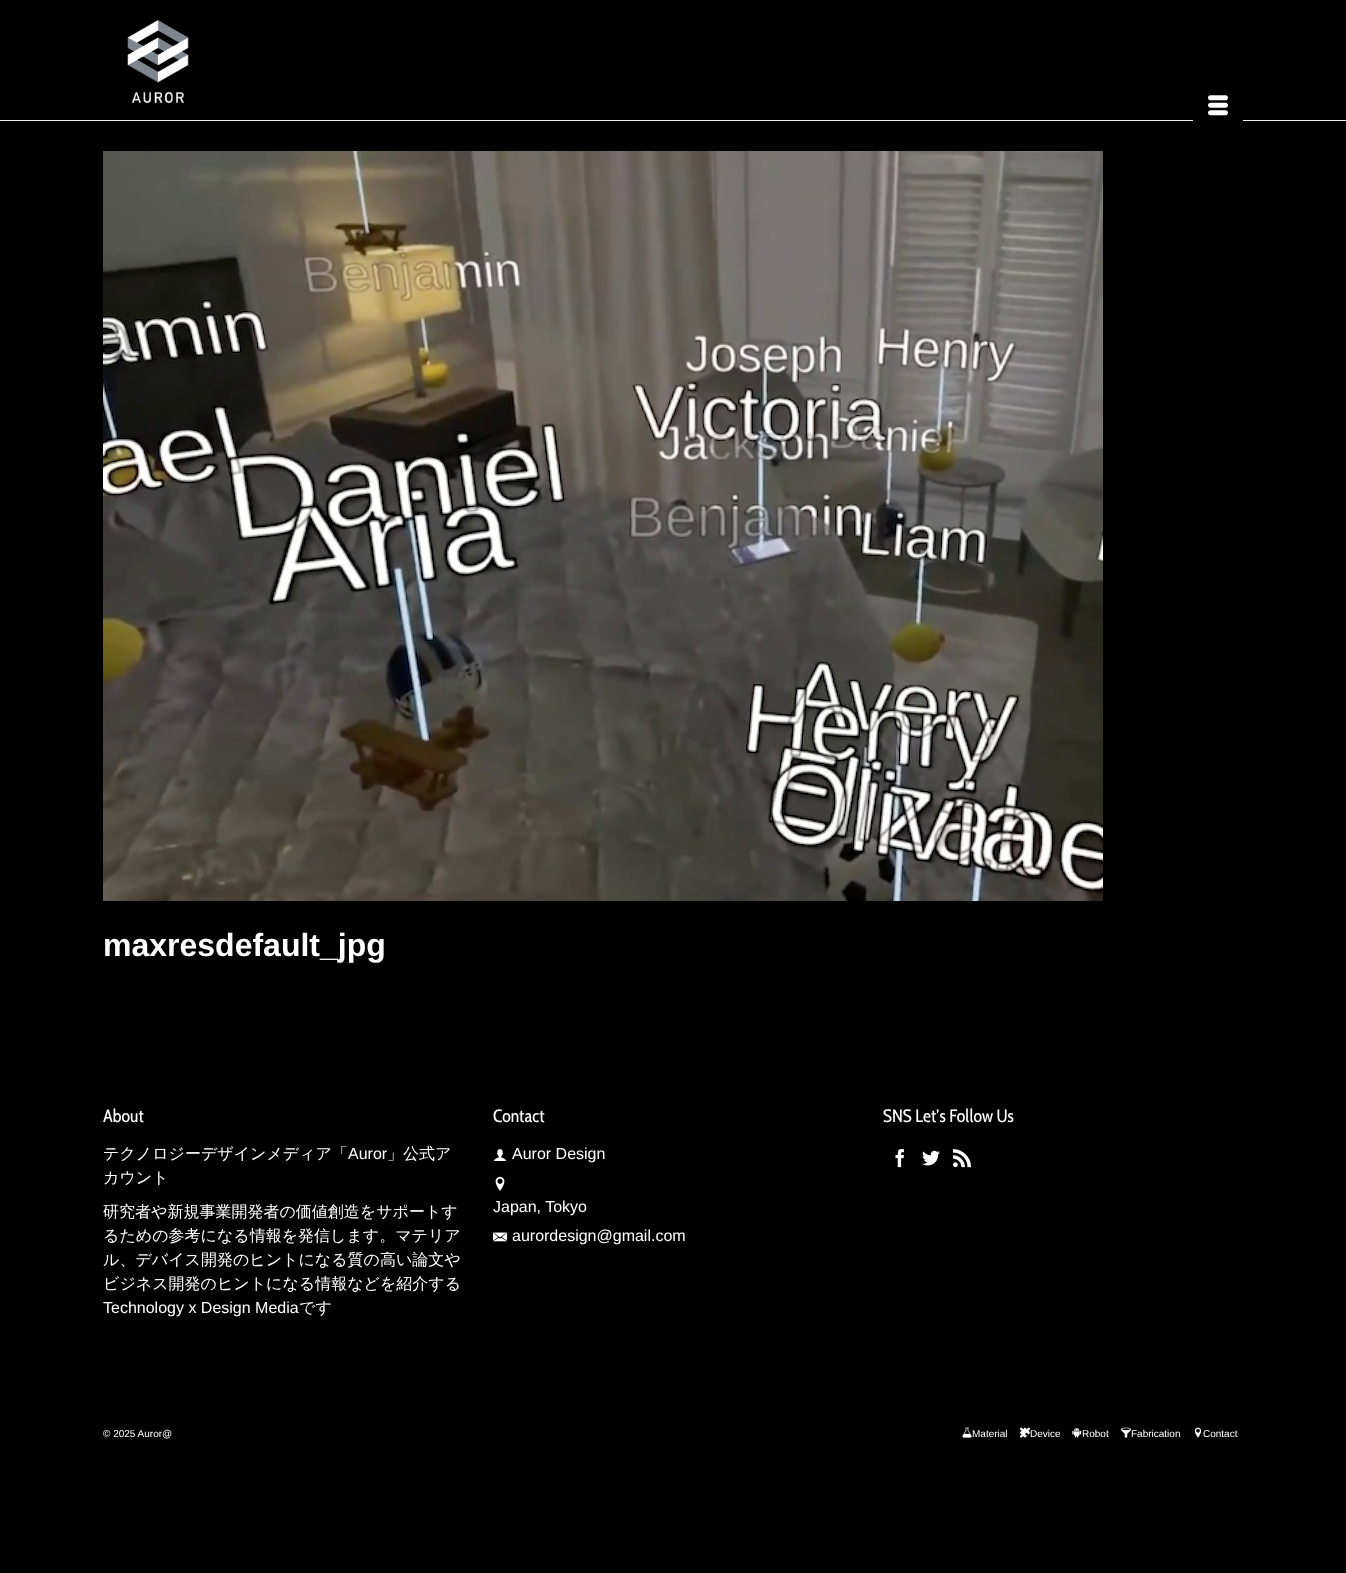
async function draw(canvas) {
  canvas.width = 1346
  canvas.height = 1573
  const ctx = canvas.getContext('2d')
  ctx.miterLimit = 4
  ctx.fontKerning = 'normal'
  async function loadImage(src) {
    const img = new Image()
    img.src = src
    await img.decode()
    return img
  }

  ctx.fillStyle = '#000'
  ctx.fillRect(0, 0, 1346, 1573)
  ctx.fillStyle = '#eee'
  ctx.fillRect(0, 120, 1346, 1)
  ctx.drawImage(await loadImage('image0.png'), 127, 20, 62, 84)
  ctx.fillStyle = '#000'
  ctx.fillRect(1193, 120, 50, 1)
  ctx.drawImage(await loadImage('image1.png'), 1208, 95, 20, 21)
  ctx.drawImage(await loadImage('image2.png'), 103, 151, 1000, 750)
  ctx.font = 'bold 32px Liberation Sans'
  ctx.fillStyle = '#fff'
  ctx.fillText('maxresdefault_jpg', 103, 956)
  ctx.font = '18px Cabin Condensed'
  ctx.fillText('About', 103, 1122)
  ctx.font = '500 16px WenQuanYi Zen Hei'
  ctx.fillText('テクノロジーデザインメディア「', 103, 1159)
  ctx.font = '16px Liberation Sans'
  ctx.fillText('Auror', 348, 1159)
  ctx.font = '500 16px WenQuanYi Zen Hei'
  ctx.fillText('」公式ア', 387, 1159)
  ctx.fillText('カウント', 103, 1183)
  ctx.fillText('研究者や新規事業開発者の価値創造をサポートす', 103, 1217)
  ctx.fillText('るための参考になる情報を発信します。マテリア', 103, 1241)
  ctx.fillText('ル、デバイス開発のヒントになる質の高い論文や', 103, 1265)
  ctx.fillText('ビジネス開発のヒントになる情報などを紹介する', 103, 1289)
  ctx.font = '16px Liberation Sans'
  ctx.fillText('Technology x Design Media', 103, 1313)
  ctx.font = '500 16px WenQuanYi Zen Hei'
  ctx.fillText('です', 299, 1313)
  ctx.font = '18px Cabin Condensed'
  ctx.fillText('Contact', 493, 1122)
  ctx.drawImage(await loadImage('image3.png'), 493, 1149, 14, 12)
  ctx.font = '16px Liberation Sans'
  ctx.fillText('Auror Design', 512, 1159)
  ctx.drawImage(await loadImage('image4.png'), 495, 1176, 10, 15)
  ctx.fillText('Japan, Tokyo', 493, 1212)
  ctx.drawImage(await loadImage('image5.png'), 493, 1232, 14, 10)
  ctx.fillText('aurordesign@gmail.com', 512, 1241)
  ctx.font = '18px Cabin Condensed'
  ctx.fillText('SNS Let’s Follow Us', 883, 1122)
  ctx.drawImage(await loadImage('image6.png'), 895, 1149, 9, 19)
  ctx.drawImage(await loadImage('image7.png'), 922, 1150, 18, 16)
  ctx.drawImage(await loadImage('image8.png'), 953, 1149, 18, 19)
  ctx.font = '10px Liberation Sans'
  ctx.fillText('© 2025 Auror@', 103, 1437)
  ctx.drawImage(await loadImage('image9.png'), 962, 1427, 10, 11)
  ctx.fillText('Material', 972, 1437)
  ctx.drawImage(await loadImage('image10.png'), 1020, 1427, 10, 11)
  ctx.fillText('Device', 1030, 1437)
  ctx.drawImage(await loadImage('image11.png'), 1072, 1427, 10, 11)
  ctx.fillText('Robot', 1082, 1437)
  ctx.drawImage(await loadImage('image12.png'), 1121, 1427, 10, 11)
  ctx.fillText('Fabrication', 1131, 1437)
  ctx.drawImage(await loadImage('image13.png'), 1194, 1427, 8, 11)
  ctx.fillText('Contact', 1203, 1437)
}

draw(document.querySelector('canvas'))
